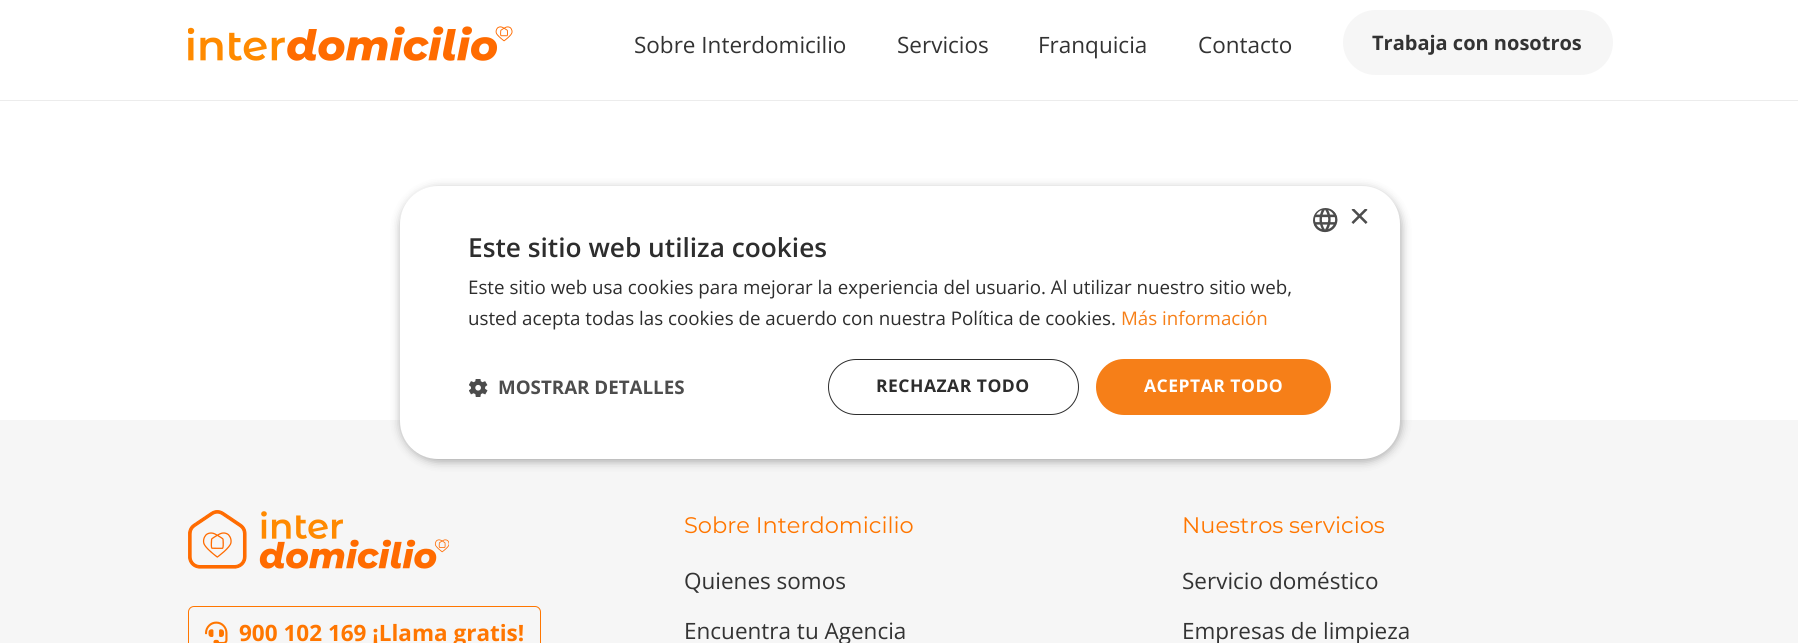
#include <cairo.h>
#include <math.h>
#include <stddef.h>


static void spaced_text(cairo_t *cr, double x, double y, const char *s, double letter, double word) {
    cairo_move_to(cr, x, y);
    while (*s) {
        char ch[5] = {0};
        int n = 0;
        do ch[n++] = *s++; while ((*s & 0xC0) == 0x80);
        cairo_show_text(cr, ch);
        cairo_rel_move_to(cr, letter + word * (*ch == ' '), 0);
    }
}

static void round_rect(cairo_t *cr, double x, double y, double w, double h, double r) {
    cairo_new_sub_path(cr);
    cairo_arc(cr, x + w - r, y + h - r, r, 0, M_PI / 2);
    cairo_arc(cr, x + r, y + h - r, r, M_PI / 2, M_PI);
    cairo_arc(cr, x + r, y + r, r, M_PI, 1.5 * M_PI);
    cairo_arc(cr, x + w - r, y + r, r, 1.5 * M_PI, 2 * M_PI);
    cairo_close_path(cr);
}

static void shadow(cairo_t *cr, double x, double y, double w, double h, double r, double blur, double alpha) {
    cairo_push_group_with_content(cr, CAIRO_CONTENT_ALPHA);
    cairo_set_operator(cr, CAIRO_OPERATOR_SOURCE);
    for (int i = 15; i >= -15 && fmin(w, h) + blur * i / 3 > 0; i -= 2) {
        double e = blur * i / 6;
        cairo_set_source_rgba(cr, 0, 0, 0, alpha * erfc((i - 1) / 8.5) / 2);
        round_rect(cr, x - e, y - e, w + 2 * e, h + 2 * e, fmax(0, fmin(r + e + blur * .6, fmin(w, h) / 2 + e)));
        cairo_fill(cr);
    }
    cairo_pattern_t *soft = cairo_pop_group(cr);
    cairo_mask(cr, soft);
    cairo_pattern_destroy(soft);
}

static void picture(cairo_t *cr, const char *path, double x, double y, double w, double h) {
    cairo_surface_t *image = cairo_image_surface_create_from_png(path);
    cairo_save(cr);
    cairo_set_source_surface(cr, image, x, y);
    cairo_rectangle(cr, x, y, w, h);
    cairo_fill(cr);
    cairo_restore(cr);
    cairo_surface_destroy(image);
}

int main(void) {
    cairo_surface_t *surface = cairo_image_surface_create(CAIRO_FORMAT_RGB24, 1798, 643);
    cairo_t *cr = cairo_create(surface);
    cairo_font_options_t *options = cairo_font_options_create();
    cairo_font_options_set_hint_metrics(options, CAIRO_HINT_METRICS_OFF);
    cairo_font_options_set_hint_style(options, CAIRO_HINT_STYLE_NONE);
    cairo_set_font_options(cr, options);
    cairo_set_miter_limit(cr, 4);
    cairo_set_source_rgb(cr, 1, 1, 1);
    cairo_paint(cr);
    cairo_set_source_rgb(cr, 0.922, 0.922, 0.922);
    cairo_new_path(cr);
    cairo_move_to(cr, 0, 100);
    cairo_line_to(cr, 0, 101);
    cairo_line_to(cr, 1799, 101);
    cairo_line_to(cr, 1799, 1);
    cairo_line_to(cr, 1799, 100);
    cairo_close_path(cr);
    cairo_fill(cr);
    picture(cr, "img1.png", 188, 26, 325, 35);
    cairo_select_font_face(cr, "Open Sans", CAIRO_FONT_SLANT_NORMAL, CAIRO_FONT_WEIGHT_NORMAL);
    cairo_set_font_size(cr, 22.5);
    cairo_set_source_rgb(cr, 0.2, 0.2, 0.2);
    cairo_move_to(cr, 634, 53);
    cairo_show_text(cr, "Sobre Interdomicilio");
    cairo_move_to(cr, 897, 53);
    cairo_show_text(cr, "Servicios");
    cairo_move_to(cr, 1038, 53);
    cairo_show_text(cr, "Franquicia");
    cairo_move_to(cr, 1198, 53);
    cairo_show_text(cr, "Contacto");
    cairo_set_source_rgb(cr, 0.961, 0.961, 0.961);
    round_rect(cr, 1343, 10, 270, 65, 32.5);
    cairo_fill(cr);
    cairo_select_font_face(cr, "Open Sans", CAIRO_FONT_SLANT_NORMAL, CAIRO_FONT_WEIGHT_BOLD);
    cairo_set_font_size(cr, 20);
    cairo_set_source_rgb(cr, 0.2, 0.2, 0.2);
    cairo_move_to(cr, 1372, 50);
    cairo_show_text(cr, "Trabaja con nosotros");
    cairo_set_source_rgb(cr, 0.961, 0.961, 0.961);
    cairo_rectangle(cr, 0, 420, 1798, 223);
    cairo_fill(cr);
    cairo_set_source_rgb(cr, 0, 0, 0);
    shadow(cr, 401, 189, 1000, 272, 38, 5, 0.35);
    cairo_set_source_rgb(cr, 1, 1, 1);
    round_rect(cr, 400, 186, 1000, 273, 38);
    cairo_fill(cr);
    picture(cr, "img2.png", 1313, 208, 25, 25);
    cairo_save(cr);
    cairo_rectangle(cr, 1350, 209, 19, 19);
    cairo_clip(cr);
    cairo_select_font_face(cr, "Liberation Sans", CAIRO_FONT_SLANT_NORMAL, CAIRO_FONT_WEIGHT_NORMAL);
    cairo_set_font_size(cr, 36);
    cairo_set_source_rgb(cr, 0.302, 0.302, 0.302);
    cairo_move_to(cr, 1349, 228);
    cairo_show_text(cr, "×");
    cairo_restore(cr);
    cairo_select_font_face(cr, "Open Sans SemiBold", CAIRO_FONT_SLANT_NORMAL, CAIRO_FONT_WEIGHT_NORMAL);
    cairo_set_font_size(cr, 26.25);
    cairo_set_source_rgb(cr, 0.176, 0.176, 0.176);
    cairo_move_to(cr, 468, 257);
    cairo_show_text(cr, "Este sitio web utiliza cookies");
    cairo_select_font_face(cr, "Open Sans", CAIRO_FONT_SLANT_NORMAL, CAIRO_FONT_WEIGHT_NORMAL);
    cairo_set_font_size(cr, 18.75);
    cairo_move_to(cr, 468, 294);
    cairo_show_text(cr, "Este sitio web usa cookies para mejorar la experiencia del usuario. Al utilizar nuestro sitio web,");
    cairo_move_to(cr, 468, 325);
    cairo_show_text(cr, "usted acepta todas las cookies de acuerdo con nuestra Política de cookies.");
    cairo_set_source_rgb(cr, 0.961, 0.498, 0.094);
    cairo_move_to(cr, 1121, 325);
    cairo_show_text(cr, "Más información");
    picture(cr, "img3.png", 469, 379, 19, 18);
    cairo_select_font_face(cr, "Open Sans", CAIRO_FONT_SLANT_NORMAL, CAIRO_FONT_WEIGHT_BOLD);
    cairo_set_source_rgb(cr, 0.302, 0.302, 0.302);
    cairo_move_to(cr, 498, 394);
    cairo_show_text(cr, "MOSTRAR DETALLES");
    round_rect(cr, 828.5, 359.5, 250, 55, 27.5);
    cairo_set_source_rgb(cr, 0.176, 0.176, 0.176);
    cairo_set_line_width(cr, 1);
    cairo_stroke(cr);
    cairo_set_font_size(cr, 17.5);
    spaced_text(cr, 876, 392, "RECHAZAR TODO", 0.5, 0);
    cairo_set_source_rgb(cr, 0.961, 0.498, 0.094);
    round_rect(cr, 1096, 359, 235, 56, 28);
    cairo_fill(cr);
    cairo_set_source_rgb(cr, 1, 1, 1);
    spaced_text(cr, 1144, 392, "ACEPTAR TODO", 0.5, 0);
    picture(cr, "img4.png", 188, 510, 261, 59);
    picture(cr, "img5.png", 205, 621, 23, 22);
    round_rect(cr, 188.5, 606.5, 352, 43, 5.5);
    cairo_set_source_rgb(cr, 1, 0.463, 0);
    cairo_stroke(cr);
    cairo_set_font_size(cr, 22.5);
    cairo_move_to(cr, 239, 641);
    cairo_show_text(cr, "900 102 169 ¡Llama gratis!");
    cairo_select_font_face(cr, "Montserrat", CAIRO_FONT_SLANT_NORMAL, CAIRO_FONT_WEIGHT_NORMAL);
    cairo_move_to(cr, 684, 533);
    cairo_show_text(cr, "Sobre Interdomicilio");
    cairo_select_font_face(cr, "Open Sans", CAIRO_FONT_SLANT_NORMAL, CAIRO_FONT_WEIGHT_NORMAL);
    cairo_set_source_rgb(cr, 0.2, 0.2, 0.2);
    cairo_move_to(cr, 684, 589);
    cairo_show_text(cr, "Quienes somos");
    cairo_move_to(cr, 684, 639);
    cairo_show_text(cr, "Encuentra tu Agencia");
    cairo_select_font_face(cr, "Montserrat", CAIRO_FONT_SLANT_NORMAL, CAIRO_FONT_WEIGHT_NORMAL);
    cairo_set_source_rgb(cr, 1, 0.463, 0);
    cairo_move_to(cr, 1182, 533);
    cairo_show_text(cr, "Nuestros servicios");
    cairo_select_font_face(cr, "Open Sans", CAIRO_FONT_SLANT_NORMAL, CAIRO_FONT_WEIGHT_NORMAL);
    cairo_set_source_rgb(cr, 0.2, 0.2, 0.2);
    cairo_move_to(cr, 1182, 589);
    cairo_show_text(cr, "Servicio doméstico");
    cairo_move_to(cr, 1182, 639);
    cairo_show_text(cr, "Empresas de limpieza");
    cairo_surface_write_to_png(surface, "page.png");
    cairo_font_options_destroy(options);
    cairo_destroy(cr);
    cairo_surface_destroy(surface);
    return 0;
}
